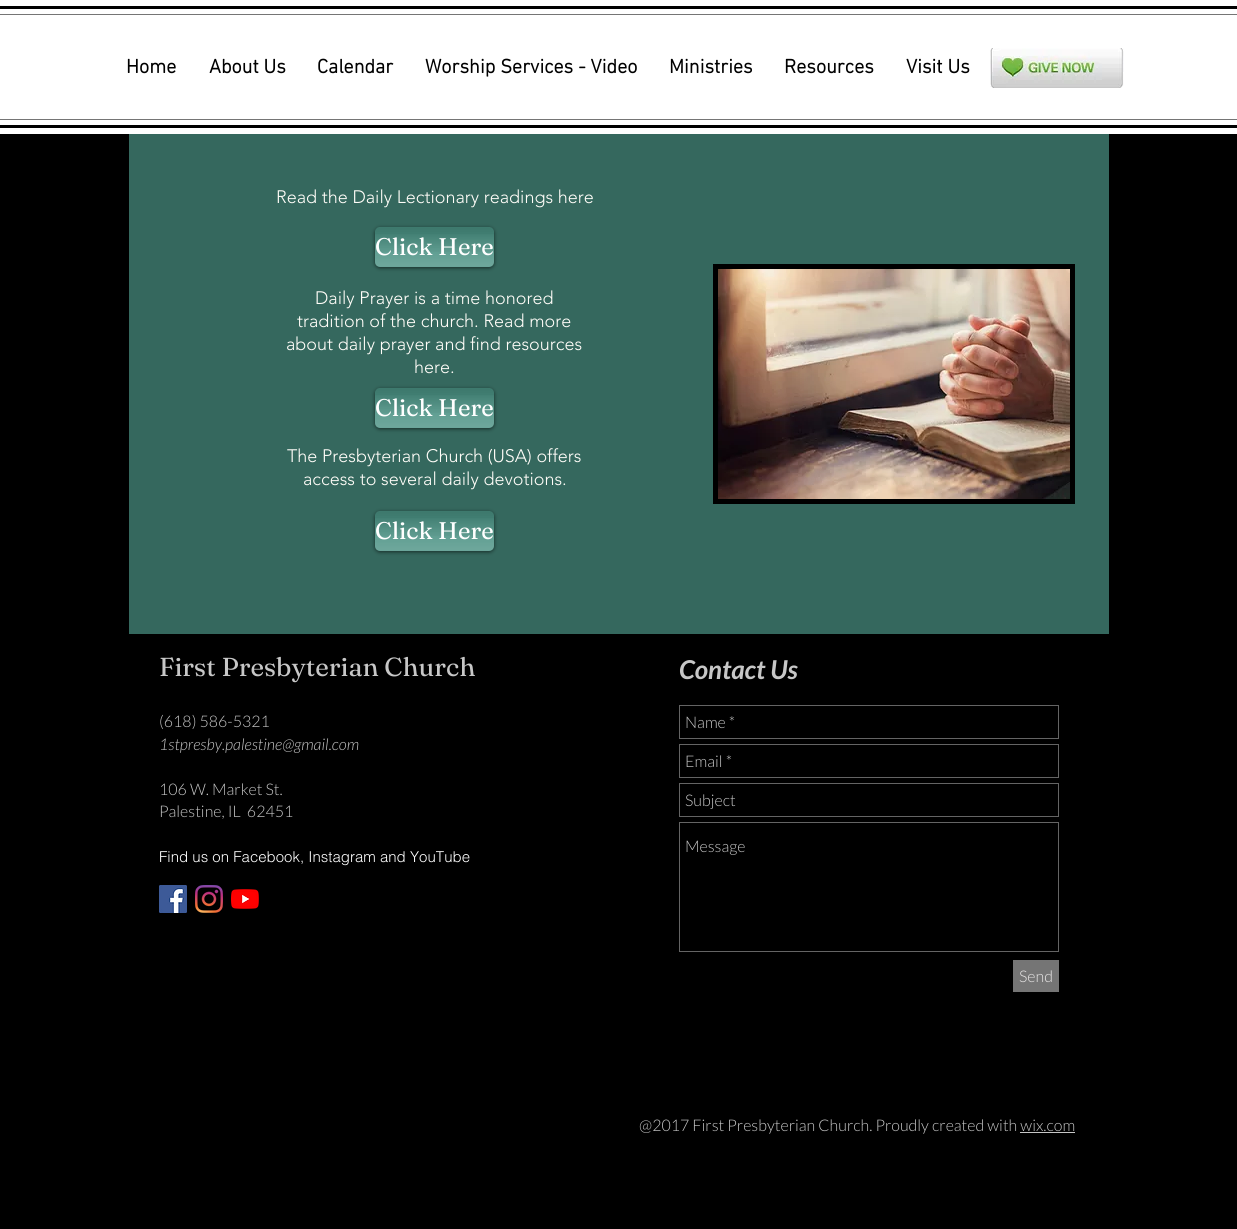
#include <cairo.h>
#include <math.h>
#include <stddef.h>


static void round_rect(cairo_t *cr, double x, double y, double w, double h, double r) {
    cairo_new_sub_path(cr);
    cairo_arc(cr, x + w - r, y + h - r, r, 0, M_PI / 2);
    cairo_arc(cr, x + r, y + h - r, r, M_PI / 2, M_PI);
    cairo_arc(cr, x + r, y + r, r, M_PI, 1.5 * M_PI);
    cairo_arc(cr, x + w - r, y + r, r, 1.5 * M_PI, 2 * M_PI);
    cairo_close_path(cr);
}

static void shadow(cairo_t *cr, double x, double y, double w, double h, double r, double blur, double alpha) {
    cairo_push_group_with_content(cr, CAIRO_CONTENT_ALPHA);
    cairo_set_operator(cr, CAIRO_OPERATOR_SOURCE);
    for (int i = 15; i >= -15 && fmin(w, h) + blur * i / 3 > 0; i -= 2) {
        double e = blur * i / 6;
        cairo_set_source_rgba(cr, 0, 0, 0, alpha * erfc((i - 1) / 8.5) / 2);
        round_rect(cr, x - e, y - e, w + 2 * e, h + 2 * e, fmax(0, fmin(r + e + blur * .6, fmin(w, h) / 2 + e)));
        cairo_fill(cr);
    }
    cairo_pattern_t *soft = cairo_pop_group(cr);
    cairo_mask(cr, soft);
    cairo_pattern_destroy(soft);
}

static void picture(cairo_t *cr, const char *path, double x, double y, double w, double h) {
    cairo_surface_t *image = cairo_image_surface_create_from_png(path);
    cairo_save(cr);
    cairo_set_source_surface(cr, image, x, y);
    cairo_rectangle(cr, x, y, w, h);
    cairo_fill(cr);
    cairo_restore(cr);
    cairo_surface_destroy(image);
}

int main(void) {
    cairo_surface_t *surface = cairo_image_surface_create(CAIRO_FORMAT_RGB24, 1237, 1229);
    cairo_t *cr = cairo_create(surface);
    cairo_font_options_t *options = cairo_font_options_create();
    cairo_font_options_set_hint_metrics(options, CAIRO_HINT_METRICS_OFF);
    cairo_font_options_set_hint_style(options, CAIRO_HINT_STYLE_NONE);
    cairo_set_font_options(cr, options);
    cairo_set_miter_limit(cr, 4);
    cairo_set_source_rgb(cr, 0, 0, 0);
    cairo_paint(cr);
    cairo_set_source_rgb(cr, 1, 1, 1);
    cairo_rectangle(cr, 0, 0, 1237, 134);
    cairo_fill(cr);
    cairo_set_source_rgb(cr, 0, 0, 0);
    cairo_rectangle(cr, 0, 6, 1237, 3);
    cairo_fill(cr);
    cairo_rectangle(cr, 0, 125, 1237, 3);
    cairo_fill(cr);
    cairo_set_source_rgb(cr, 0.459, 0.459, 0.459);
    cairo_rectangle(cr, 0, 14, 1237, 1);
    cairo_fill(cr);
    cairo_rectangle(cr, 0, 119, 1237, 1);
    cairo_fill(cr);
    cairo_select_font_face(cr, "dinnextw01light", CAIRO_FONT_SLANT_NORMAL, CAIRO_FONT_WEIGHT_BOLD);
    cairo_set_font_size(cr, 20);
    cairo_set_source_rgb(cr, 0, 0, 0);
    cairo_move_to(cr, 126, 73);
    cairo_show_text(cr, "Home");
    cairo_move_to(cr, 209, 73);
    cairo_show_text(cr, "About Us");
    cairo_move_to(cr, 317, 73);
    cairo_show_text(cr, "Calendar");
    cairo_move_to(cr, 425, 73);
    cairo_show_text(cr, "Worship Services - Video");
    cairo_move_to(cr, 669, 73);
    cairo_show_text(cr, "Ministries");
    cairo_move_to(cr, 784, 73);
    cairo_show_text(cr, "Resources");
    cairo_move_to(cr, 906, 73);
    cairo_show_text(cr, "Visit Us");
    picture(cr, "img1.png", 990, 48, 134, 40);
    cairo_set_source_rgb(cr, 0.208, 0.408, 0.369);
    cairo_rectangle(cr, 129, 134, 980, 500);
    cairo_fill(cr);
    cairo_select_font_face(cr, "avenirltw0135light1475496 Light", CAIRO_FONT_SLANT_NORMAL, CAIRO_FONT_WEIGHT_NORMAL);
    cairo_set_font_size(cr, 18);
    cairo_set_source_rgb(cr, 1, 0.992, 0.969);
    cairo_move_to(cr, 276, 203);
    cairo_show_text(cr, "Read the Daily Lectionary readings here");
    cairo_set_source_rgb(cr, 0, 0, 0);
    shadow(cr, 375, 228, 119, 40, 5, 2, 0.6);
    cairo_set_source_rgb(cr, 0.29, 0.569, 0.514);
    round_rect(cr, 375, 227, 119, 40, 5);
    cairo_fill(cr);
    picture(cr, "img2.png", 375, 227, 119, 25);
    picture(cr, "img3.png", 375, 234, 119, 33);
    cairo_select_font_face(cr, "Fraunces", CAIRO_FONT_SLANT_NORMAL, CAIRO_FONT_WEIGHT_NORMAL);
    cairo_set_font_size(cr, 24);
    cairo_set_source_rgb(cr, 1, 1, 1);
    cairo_move_to(cr, 375, 255);
    cairo_show_text(cr, "Click Here");
    cairo_select_font_face(cr, "avenirltw0135light1475496 Light", CAIRO_FONT_SLANT_NORMAL, CAIRO_FONT_WEIGHT_NORMAL);
    cairo_set_font_size(cr, 18);
    cairo_set_source_rgb(cr, 1, 0.992, 0.969);
    cairo_move_to(cr, 315, 304);
    cairo_show_text(cr, "Daily Prayer is a time honored");
    cairo_move_to(cr, 297, 327);
    cairo_show_text(cr, "tradition of the church. Read more");
    cairo_move_to(cr, 286, 350);
    cairo_show_text(cr, "about daily prayer and find resources");
    cairo_move_to(cr, 414, 373);
    cairo_show_text(cr, "here.");
    cairo_set_source_rgb(cr, 0, 0, 0);
    cairo_rectangle(cr, 713, 264, 362, 240);
    cairo_fill(cr);
    picture(cr, "img4.png", 718, 269, 352, 230);
    cairo_set_source_rgb(cr, 0, 0, 0);
    shadow(cr, 375, 389, 119, 40, 5, 2, 0.6);
    cairo_set_source_rgb(cr, 0.29, 0.569, 0.514);
    round_rect(cr, 375, 388, 119, 40, 5);
    cairo_fill(cr);
    picture(cr, "img2.png", 375, 388, 119, 25);
    picture(cr, "img5.png", 375, 395, 119, 33);
    cairo_select_font_face(cr, "Fraunces", CAIRO_FONT_SLANT_NORMAL, CAIRO_FONT_WEIGHT_NORMAL);
    cairo_set_font_size(cr, 24);
    cairo_set_source_rgb(cr, 1, 1, 1);
    cairo_move_to(cr, 375, 416);
    cairo_show_text(cr, "Click Here");
    cairo_select_font_face(cr, "avenirltw0135light1475496 Light", CAIRO_FONT_SLANT_NORMAL, CAIRO_FONT_WEIGHT_NORMAL);
    cairo_set_font_size(cr, 18);
    cairo_set_source_rgb(cr, 1, 0.992, 0.969);
    cairo_move_to(cr, 287, 462);
    cairo_show_text(cr, "The Presbyterian Church (USA) offers");
    cairo_move_to(cr, 303, 485);
    cairo_show_text(cr, "access to several daily devotions.");
    cairo_set_source_rgb(cr, 0, 0, 0);
    shadow(cr, 375, 512, 119, 40, 5, 2, 0.6);
    cairo_set_source_rgb(cr, 0.29, 0.569, 0.514);
    round_rect(cr, 375, 511, 119, 40, 5);
    cairo_fill(cr);
    picture(cr, "img2.png", 375, 511, 119, 25);
    picture(cr, "img5.png", 375, 518, 119, 33);
    cairo_select_font_face(cr, "Fraunces", CAIRO_FONT_SLANT_NORMAL, CAIRO_FONT_WEIGHT_NORMAL);
    cairo_set_font_size(cr, 24);
    cairo_set_source_rgb(cr, 1, 1, 1);
    cairo_move_to(cr, 375, 539);
    cairo_show_text(cr, "Click Here");
    cairo_set_font_size(cr, 26);
    cairo_set_source_rgb(cr, 0.78, 0.78, 0.78);
    cairo_move_to(cr, 159, 676);
    cairo_show_text(cr, "First Presbyterian Church");
    cairo_select_font_face(cr, "Lato", CAIRO_FONT_SLANT_ITALIC, CAIRO_FONT_WEIGHT_BOLD);
    cairo_move_to(cr, 679, 679);
    cairo_show_text(cr, "Contact Us");
    cairo_select_font_face(cr, "Lato Light", CAIRO_FONT_SLANT_NORMAL, CAIRO_FONT_WEIGHT_NORMAL);
    cairo_set_font_size(cr, 16);
    cairo_move_to(cr, 159, 727);
    cairo_show_text(cr, "(618) 586-5321");
    cairo_select_font_face(cr, "Lato Light", CAIRO_FONT_SLANT_ITALIC, CAIRO_FONT_WEIGHT_NORMAL);
    cairo_move_to(cr, 159, 750);
    cairo_show_text(cr, "1stpresby.palestine@gmail.com");
    cairo_select_font_face(cr, "Lato Light", CAIRO_FONT_SLANT_NORMAL, CAIRO_FONT_WEIGHT_NORMAL);
    cairo_move_to(cr, 159, 795);
    cairo_show_text(cr, "106 W. Market St.");
    cairo_move_to(cr, 159, 817);
    cairo_show_text(cr, "Palestine, IL  62451");
    cairo_rectangle(cr, 679.5, 705.5, 379, 33);
    cairo_set_source_rgb(cr, 0.392, 0.392, 0.392);
    cairo_set_line_width(cr, 1);
    cairo_stroke(cr);
    cairo_set_source_rgb(cr, 0.78, 0.78, 0.78);
    cairo_move_to(cr, 685, 728);
    cairo_show_text(cr, "Name *");
    cairo_rectangle(cr, 679.5, 744.5, 379, 33);
    cairo_set_source_rgb(cr, 0.392, 0.392, 0.392);
    cairo_stroke(cr);
    cairo_set_source_rgb(cr, 0.78, 0.78, 0.78);
    cairo_move_to(cr, 685, 767);
    cairo_show_text(cr, "Email *");
    cairo_rectangle(cr, 679.5, 783.5, 379, 33);
    cairo_set_source_rgb(cr, 0.392, 0.392, 0.392);
    cairo_stroke(cr);
    cairo_set_source_rgb(cr, 0.78, 0.78, 0.78);
    cairo_move_to(cr, 685, 806);
    cairo_show_text(cr, "Subject");
    cairo_rectangle(cr, 679.5, 822.5, 379, 129);
    cairo_set_source_rgb(cr, 0.392, 0.392, 0.392);
    cairo_stroke(cr);
    cairo_set_source_rgb(cr, 0.78, 0.78, 0.78);
    cairo_move_to(cr, 685, 852);
    cairo_show_text(cr, "Message");
    cairo_set_source_rgb(cr, 0.459, 0.459, 0.459);
    cairo_rectangle(cr, 1013, 960, 46, 32);
    cairo_fill(cr);
    cairo_set_source_rgb(cr, 0.91, 0.902, 0.902);
    cairo_move_to(cr, 1019, 982);
    cairo_show_text(cr, "Send");
    cairo_select_font_face(cr, "helvetica Light", CAIRO_FONT_SLANT_NORMAL, CAIRO_FONT_WEIGHT_NORMAL);
    cairo_set_font_size(cr, 15);
    cairo_set_source_rgb(cr, 1, 1, 1);
    cairo_move_to(cr, 159, 862);
    cairo_show_text(cr, "Find us on Facebook, Instagram and YouTube");
    picture(cr, "img6.png", 159, 885, 28, 28);
    picture(cr, "img7.png", 195, 885, 28, 28);
    picture(cr, "img8.png", 231, 889, 28, 20);
    cairo_select_font_face(cr, "Lato Light", CAIRO_FONT_SLANT_NORMAL, CAIRO_FONT_WEIGHT_NORMAL);
    cairo_set_font_size(cr, 16);
    cairo_set_source_rgb(cr, 0.78, 0.78, 0.78);
    cairo_move_to(cr, 639, 1131);
    cairo_show_text(cr, "@2017 First Presbyterian Church. Proudly created with wix.com");
    cairo_rectangle(cr, 1020, 1132, 55, 1);
    cairo_fill(cr);
    cairo_surface_write_to_png(surface, "page.png");
    cairo_font_options_destroy(options);
    cairo_destroy(cr);
    cairo_surface_destroy(surface);
    return 0;
}
